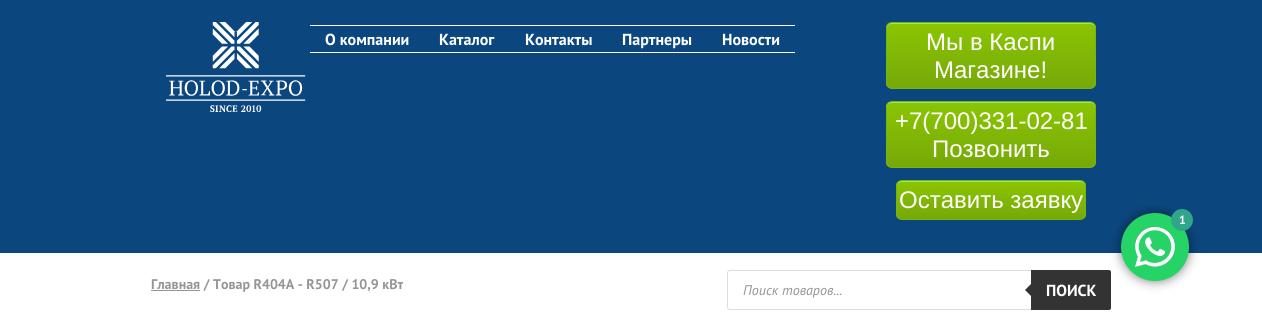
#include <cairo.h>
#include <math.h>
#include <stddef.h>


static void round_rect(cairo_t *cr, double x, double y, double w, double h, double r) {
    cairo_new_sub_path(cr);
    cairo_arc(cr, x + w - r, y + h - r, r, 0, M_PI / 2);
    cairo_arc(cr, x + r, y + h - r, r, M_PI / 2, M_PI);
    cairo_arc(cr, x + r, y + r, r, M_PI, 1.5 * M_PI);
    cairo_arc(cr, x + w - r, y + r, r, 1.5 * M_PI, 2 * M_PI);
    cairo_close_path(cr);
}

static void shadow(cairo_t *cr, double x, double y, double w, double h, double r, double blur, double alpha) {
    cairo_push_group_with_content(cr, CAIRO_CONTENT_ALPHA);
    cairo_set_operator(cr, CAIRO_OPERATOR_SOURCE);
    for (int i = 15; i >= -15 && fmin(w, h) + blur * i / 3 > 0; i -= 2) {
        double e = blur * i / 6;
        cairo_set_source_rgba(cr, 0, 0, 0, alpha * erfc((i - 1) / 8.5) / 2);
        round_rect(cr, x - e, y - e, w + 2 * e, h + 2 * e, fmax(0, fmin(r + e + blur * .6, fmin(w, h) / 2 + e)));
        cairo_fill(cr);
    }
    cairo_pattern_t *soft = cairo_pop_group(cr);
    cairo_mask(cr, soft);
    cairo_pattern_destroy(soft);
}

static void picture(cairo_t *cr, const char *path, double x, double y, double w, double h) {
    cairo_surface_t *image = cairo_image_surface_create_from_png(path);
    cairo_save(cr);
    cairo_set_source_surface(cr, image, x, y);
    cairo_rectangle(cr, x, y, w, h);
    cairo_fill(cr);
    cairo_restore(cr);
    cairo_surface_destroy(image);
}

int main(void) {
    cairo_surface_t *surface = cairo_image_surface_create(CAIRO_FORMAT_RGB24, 1262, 316);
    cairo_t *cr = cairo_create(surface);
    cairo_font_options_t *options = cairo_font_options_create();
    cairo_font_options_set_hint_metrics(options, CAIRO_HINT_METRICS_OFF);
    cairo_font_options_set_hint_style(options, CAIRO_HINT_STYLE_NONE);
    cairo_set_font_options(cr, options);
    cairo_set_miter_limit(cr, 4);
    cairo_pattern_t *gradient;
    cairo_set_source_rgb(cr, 1, 1, 1);
    cairo_paint(cr);
    cairo_set_source_rgb(cr, 0.043, 0.278, 0.494);
    cairo_rectangle(cr, 0, 0, 1262, 253);
    cairo_fill(cr);
    picture(cr, "img1.png", 166, 22, 140, 90);
    cairo_set_source_rgb(cr, 1, 1, 1);
    cairo_rectangle(cr, 310, 25, 485, 1);
    cairo_fill(cr);
    cairo_rectangle(cr, 310, 52, 485, 1);
    cairo_fill(cr);
    cairo_select_font_face(cr, "PT Sans", CAIRO_FONT_SLANT_NORMAL, CAIRO_FONT_WEIGHT_BOLD);
    cairo_set_font_size(cr, 16);
    cairo_move_to(cr, 325, 45);
    cairo_show_text(cr, "О компании");
    cairo_move_to(cr, 439, 45);
    cairo_show_text(cr, "Каталог");
    cairo_move_to(cr, 525, 45);
    cairo_show_text(cr, "Контакты");
    cairo_move_to(cr, 622, 45);
    cairo_show_text(cr, "Партнеры");
    cairo_move_to(cr, 722, 45);
    cairo_show_text(cr, "Новости");
    cairo_save(cr);
    round_rect(cr, 886, 22, 210, 67, 6);
    cairo_clip(cr);
    gradient = cairo_pattern_create_linear(991, 23, 991, 88);
    cairo_pattern_add_color_stop_rgba(gradient, 0.05, 0.537, 0.769, 0.012, 1);
    cairo_pattern_add_color_stop_rgba(gradient, 1, 0.467, 0.659, 0.035, 1);
    cairo_set_source(cr, gradient);
    cairo_pattern_destroy(gradient);
    cairo_rectangle(cr, 886, 23, 210, 65);
    cairo_fill(cr);
    cairo_restore(cr);
    cairo_set_source_rgb(cr, 0.643, 0.886, 0.443);
    cairo_new_path(cr);
    cairo_move_to(cr, 892, 24);
    cairo_line_to(cr, 1090, 24);
    cairo_curve_to(cr, 1093, 24, 1095, 26, 1095, 29);
    cairo_line_to(cr, 1095, 28);
    cairo_curve_to(cr, 1095, 25, 1093, 23, 1090, 23);
    cairo_line_to(cr, 892, 23);
    cairo_curve_to(cr, 889, 23, 887, 25, 887, 28);
    cairo_line_to(cr, 887, 29);
    cairo_curve_to(cr, 887, 26, 889, 24, 892, 24);
    cairo_close_path(cr);
    cairo_fill(cr);
    round_rect(cr, 886.5, 22.5, 209, 66, 5.5);
    cairo_set_source_rgb(cr, 0.455, 0.722, 0.027);
    cairo_set_line_width(cr, 1);
    cairo_stroke(cr);
    cairo_select_font_face(cr, "Liberation Sans", CAIRO_FONT_SLANT_NORMAL, CAIRO_FONT_WEIGHT_NORMAL);
    cairo_set_font_size(cr, 24);
    cairo_set_source_rgb(cr, 1, 1, 1);
    cairo_move_to(cr, 926, 50);
    cairo_show_text(cr, "Мы в Каспи");
    cairo_move_to(cr, 934, 78);
    cairo_show_text(cr, "Магазине!");
    cairo_save(cr);
    round_rect(cr, 886, 101, 210, 67, 6);
    cairo_clip(cr);
    gradient = cairo_pattern_create_linear(991, 102, 991, 167);
    cairo_pattern_add_color_stop_rgba(gradient, 0.05, 0.537, 0.769, 0.012, 1);
    cairo_pattern_add_color_stop_rgba(gradient, 1, 0.467, 0.659, 0.035, 1);
    cairo_set_source(cr, gradient);
    cairo_pattern_destroy(gradient);
    cairo_rectangle(cr, 886, 102, 210, 65);
    cairo_fill(cr);
    cairo_restore(cr);
    cairo_set_source_rgb(cr, 0.643, 0.886, 0.443);
    cairo_new_path(cr);
    cairo_move_to(cr, 892, 103);
    cairo_line_to(cr, 1090, 103);
    cairo_curve_to(cr, 1093, 103, 1095, 105, 1095, 108);
    cairo_line_to(cr, 1095, 107);
    cairo_curve_to(cr, 1095, 104, 1093, 102, 1090, 102);
    cairo_line_to(cr, 892, 102);
    cairo_curve_to(cr, 889, 102, 887, 104, 887, 107);
    cairo_line_to(cr, 887, 108);
    cairo_curve_to(cr, 887, 105, 889, 103, 892, 103);
    cairo_close_path(cr);
    cairo_fill(cr);
    round_rect(cr, 886.5, 101.5, 209, 66, 5.5);
    cairo_set_source_rgb(cr, 0.455, 0.722, 0.027);
    cairo_stroke(cr);
    cairo_set_source_rgb(cr, 1, 1, 1);
    cairo_move_to(cr, 895, 129);
    cairo_show_text(cr, "+7(700)331-02-81");
    cairo_move_to(cr, 932, 157);
    cairo_show_text(cr, "Позвонить");
    cairo_save(cr);
    round_rect(cr, 896, 180, 190, 40, 6);
    cairo_clip(cr);
    gradient = cairo_pattern_create_linear(991, 181, 991, 219);
    cairo_pattern_add_color_stop_rgba(gradient, 0.05, 0.537, 0.769, 0.012, 1);
    cairo_pattern_add_color_stop_rgba(gradient, 1, 0.467, 0.659, 0.035, 1);
    cairo_set_source(cr, gradient);
    cairo_pattern_destroy(gradient);
    cairo_rectangle(cr, 896, 181, 190, 38);
    cairo_fill(cr);
    cairo_restore(cr);
    cairo_set_source_rgb(cr, 0.643, 0.886, 0.443);
    cairo_new_path(cr);
    cairo_move_to(cr, 902, 182);
    cairo_line_to(cr, 1080, 182);
    cairo_curve_to(cr, 1083, 182, 1085, 184, 1085, 187);
    cairo_curve_to(cr, 1085, 184, 1084, 182, 1081, 181);
    cairo_line_to(cr, 901, 181);
    cairo_curve_to(cr, 898, 182, 897, 184, 897, 187);
    cairo_curve_to(cr, 897, 184, 899, 182, 902, 182);
    cairo_close_path(cr);
    cairo_fill(cr);
    round_rect(cr, 896.5, 180.5, 189, 39, 5.5);
    cairo_set_source_rgb(cr, 0.455, 0.722, 0.027);
    cairo_stroke(cr);
    cairo_set_source_rgb(cr, 1, 1, 1);
    cairo_move_to(cr, 899, 208);
    cairo_show_text(cr, "Оставить заявку");
    round_rect(cr, 727.5, 270.5, 383, 39, 2.5);
    cairo_set_source_rgb(cr, 0.867, 0.867, 0.867);
    cairo_stroke(cr);
    cairo_set_source_rgb(cr, 0.2, 0.2, 0.2);
    cairo_new_path(cr);
    cairo_move_to(cr, 1031, 270);
    cairo_line_to(cr, 1109, 270);
    cairo_curve_to(cr, 1110, 270, 1111, 271, 1111, 272);
    cairo_line_to(cr, 1111, 308);
    cairo_curve_to(cr, 1111, 309, 1110, 310, 1109, 310);
    cairo_line_to(cr, 1031, 310);
    cairo_close_path(cr);
    cairo_fill(cr);
    cairo_set_source_rgb(cr, 0, 0, 0);
    shadow(cr, 1121, 213, 68, 68, 34, 5.5, 0.5);
    cairo_set_source_rgb(cr, 0.145, 0.827, 0.4);
    cairo_arc(cr, 1155, 247, 34, 0, 2 * M_PI);
    cairo_fill(cr);
    picture(cr, "img2.png", 1135, 227, 40, 40);
    cairo_set_source_rgb(cr, 0.192, 0.647, 0.541);
    cairo_arc(cr, 1182, 220, 11, 0, 2 * M_PI);
    cairo_fill(cr);
    cairo_select_font_face(cr, "PT Sans", CAIRO_FONT_SLANT_NORMAL, CAIRO_FONT_WEIGHT_BOLD);
    cairo_set_font_size(cr, 12);
    cairo_set_source_rgb(cr, 1, 1, 1);
    cairo_move_to(cr, 1179, 224);
    cairo_show_text(cr, "1");
    cairo_set_source_rgb(cr, 0.584, 0.584, 0.584);
    cairo_rectangle(cr, 151, 290, 49, 1);
    cairo_fill(cr);
    cairo_set_font_size(cr, 14);
    cairo_move_to(cr, 151, 289);
    cairo_show_text(cr, "Главная / Товар R404A - R507 / 10,9 кВт");
    cairo_select_font_face(cr, "PT Sans", CAIRO_FONT_SLANT_ITALIC, CAIRO_FONT_WEIGHT_NORMAL);
    cairo_move_to(cr, 743, 295);
    cairo_show_text(cr, "Поиск товаров...");
    cairo_set_source_rgb(cr, 0.2, 0.2, 0.2);
    cairo_new_path(cr);
    cairo_move_to(cr, 1033, 282);
    cairo_line_to(cr, 1033, 298);
    cairo_line_to(cr, 1025, 290);
    cairo_close_path(cr);
    cairo_fill(cr);
    cairo_select_font_face(cr, "PT Sans", CAIRO_FONT_SLANT_NORMAL, CAIRO_FONT_WEIGHT_BOLD);
    cairo_set_font_size(cr, 16);
    cairo_set_source_rgb(cr, 1, 1, 1);
    cairo_move_to(cr, 1046, 296);
    cairo_show_text(cr, "ПОИСК");
    cairo_surface_write_to_png(surface, "page.png");
    cairo_font_options_destroy(options);
    cairo_destroy(cr);
    cairo_surface_destroy(surface);
    return 0;
}
